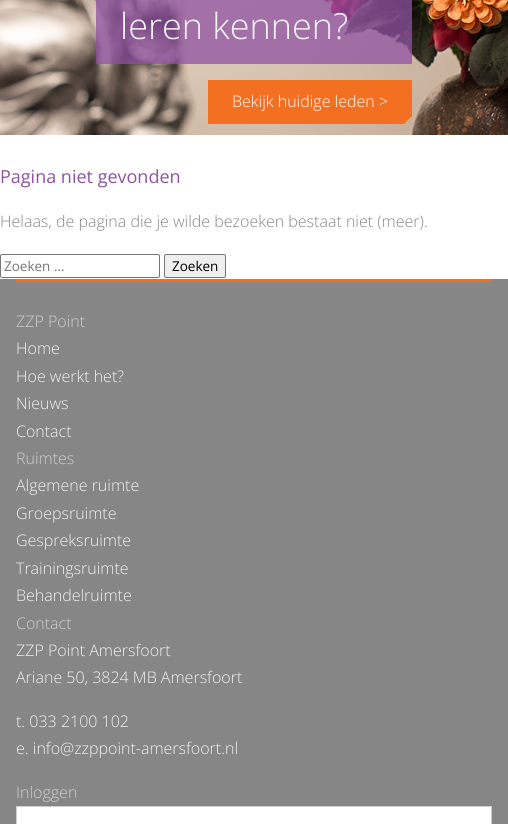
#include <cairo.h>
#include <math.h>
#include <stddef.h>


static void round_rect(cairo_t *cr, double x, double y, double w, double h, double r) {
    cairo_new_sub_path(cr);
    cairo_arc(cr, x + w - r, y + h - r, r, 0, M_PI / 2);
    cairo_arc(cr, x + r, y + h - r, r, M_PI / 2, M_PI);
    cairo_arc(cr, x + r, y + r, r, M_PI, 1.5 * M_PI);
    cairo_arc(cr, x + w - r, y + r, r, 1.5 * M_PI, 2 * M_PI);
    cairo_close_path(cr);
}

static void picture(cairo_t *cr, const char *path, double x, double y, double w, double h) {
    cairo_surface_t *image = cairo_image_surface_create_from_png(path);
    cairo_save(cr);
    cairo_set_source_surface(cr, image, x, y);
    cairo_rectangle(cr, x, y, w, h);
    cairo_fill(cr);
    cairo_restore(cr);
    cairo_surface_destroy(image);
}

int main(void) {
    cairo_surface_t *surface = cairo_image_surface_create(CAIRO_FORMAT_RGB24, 508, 824);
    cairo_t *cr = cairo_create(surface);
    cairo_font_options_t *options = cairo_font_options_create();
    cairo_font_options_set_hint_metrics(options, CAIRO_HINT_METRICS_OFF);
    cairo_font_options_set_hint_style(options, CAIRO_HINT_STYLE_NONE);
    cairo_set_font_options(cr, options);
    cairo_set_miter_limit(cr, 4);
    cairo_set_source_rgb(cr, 1, 1, 1);
    cairo_paint(cr);
    picture(cr, "img1.png", 0, 0, 508, 135);
    cairo_set_source_rgba(cr, 0.561, 0.322, 0.631, 0.75);
    cairo_rectangle(cr, 96, 0, 316, 64);
    cairo_fill(cr);
    cairo_select_font_face(cr, "Open Sans Light", CAIRO_FONT_SLANT_NORMAL, CAIRO_FONT_WEIGHT_NORMAL);
    cairo_set_font_size(cr, 36);
    cairo_set_source_rgb(cr, 0.949, 0.949, 0.949);
    cairo_move_to(cr, 120, 39);
    cairo_show_text(cr, "leren kennen?");
    cairo_set_source_rgb(cr, 0.953, 0.435, 0.129);
    cairo_rectangle(cr, 208, 80, 196, 44);
    cairo_fill(cr);
    cairo_set_font_size(cr, 16);
    cairo_set_source_rgb(cr, 1, 1, 1);
    cairo_move_to(cr, 232, 107);
    cairo_show_text(cr, "Bekijk huidige leden >");
    cairo_set_source_rgb(cr, 0.953, 0.435, 0.129);
    cairo_rectangle(cr, 404, 80, 8, 1);
    cairo_fill(cr);
    cairo_new_path(cr);
    cairo_move_to(cr, 404, 124);
    cairo_line_to(cr, 404, 80);
    cairo_line_to(cr, 412, 81);
    cairo_line_to(cr, 412, 116);
    cairo_close_path(cr);
    cairo_fill(cr);
    cairo_select_font_face(cr, "Open Sans", CAIRO_FONT_SLANT_NORMAL, CAIRO_FONT_WEIGHT_NORMAL);
    cairo_set_font_size(cr, 18);
    cairo_set_source_rgb(cr, 0.561, 0.322, 0.631);
    cairo_move_to(cr, 0, 183);
    cairo_show_text(cr, "Pagina niet gevonden");
    cairo_select_font_face(cr, "Open Sans Light", CAIRO_FONT_SLANT_NORMAL, CAIRO_FONT_WEIGHT_NORMAL);
    cairo_set_font_size(cr, 16);
    cairo_set_source_rgb(cr, 0.525, 0.525, 0.525);
    cairo_move_to(cr, 0, 227);
    cairo_show_text(cr, "Helaas, de pagina die je wilde bezoeken bestaat niet (meer).");
    round_rect(cr, 0.5, 254.5, 159, 23, 1.5);
    cairo_set_source_rgb(cr, 0.463, 0.463, 0.463);
    cairo_set_line_width(cr, 1);
    cairo_stroke(cr);
    cairo_select_font_face(cr, "Open Sans", CAIRO_FONT_SLANT_NORMAL, CAIRO_FONT_WEIGHT_NORMAL);
    cairo_set_font_size(cr, 13.5);
    cairo_set_source_rgb(cr, 0.459, 0.459, 0.459);
    cairo_move_to(cr, 4, 271);
    cairo_show_text(cr, "Zoeken …");
    cairo_set_source_rgb(cr, 0.937, 0.937, 0.937);
    round_rect(cr, 164.5, 254.5, 61, 23, 1.5);
    cairo_fill_preserve(cr);
    cairo_set_source_rgb(cr, 0.463, 0.463, 0.463);
    cairo_stroke(cr);
    cairo_set_source_rgb(cr, 0, 0, 0);
    cairo_move_to(cr, 172, 271);
    cairo_show_text(cr, "Zoeken");
    cairo_set_source_rgb(cr, 0.525, 0.525, 0.525);
    cairo_rectangle(cr, 0, 279, 508, 545);
    cairo_fill(cr);
    cairo_set_source_rgb(cr, 0.953, 0.435, 0.129);
    cairo_rectangle(cr, 16, 279, 476, 3);
    cairo_fill(cr);
    cairo_select_font_face(cr, "Open Sans Light", CAIRO_FONT_SLANT_NORMAL, CAIRO_FONT_WEIGHT_NORMAL);
    cairo_set_font_size(cr, 16);
    cairo_set_source_rgb(cr, 0.812, 0.812, 0.812);
    cairo_move_to(cr, 16, 327);
    cairo_show_text(cr, "ZZP Point");
    cairo_set_source_rgb(cr, 0.949, 0.949, 0.949);
    cairo_move_to(cr, 16, 354);
    cairo_show_text(cr, "Home");
    cairo_move_to(cr, 16, 382);
    cairo_show_text(cr, "Hoe werkt het?");
    cairo_move_to(cr, 16, 409);
    cairo_show_text(cr, "Nieuws");
    cairo_move_to(cr, 16, 437);
    cairo_show_text(cr, "Contact");
    cairo_set_source_rgb(cr, 0.812, 0.812, 0.812);
    cairo_move_to(cr, 16, 464);
    cairo_show_text(cr, "Ruimtes");
    cairo_set_source_rgb(cr, 0.949, 0.949, 0.949);
    cairo_move_to(cr, 16, 491);
    cairo_show_text(cr, "Algemene ruimte");
    cairo_move_to(cr, 16, 519);
    cairo_show_text(cr, "Groepsruimte");
    cairo_move_to(cr, 16, 546);
    cairo_show_text(cr, "Gespreksruimte");
    cairo_move_to(cr, 16, 574);
    cairo_show_text(cr, "Trainingsruimte");
    cairo_move_to(cr, 16, 601);
    cairo_show_text(cr, "Behandelruimte");
    cairo_set_source_rgb(cr, 0.812, 0.812, 0.812);
    cairo_move_to(cr, 16, 629);
    cairo_show_text(cr, "Contact");
    cairo_set_source_rgb(cr, 0.949, 0.949, 0.949);
    cairo_move_to(cr, 16, 656);
    cairo_show_text(cr, "ZZP Point Amersfoort");
    cairo_move_to(cr, 16, 683);
    cairo_show_text(cr, "Ariane 50, 3824 MB Amersfoort");
    cairo_move_to(cr, 16, 727);
    cairo_show_text(cr, "t. 033 2100 102");
    cairo_move_to(cr, 16, 754);
    cairo_show_text(cr, "e. info@zzppoint-amersfoort.nl");
    cairo_set_source_rgb(cr, 0.812, 0.812, 0.812);
    cairo_move_to(cr, 16, 798);
    cairo_show_text(cr, "Inloggen");
    cairo_set_source_rgb(cr, 1, 1, 1);
    cairo_rectangle(cr, 16.5, 806.5, 475, 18);
    cairo_fill_preserve(cr);
    cairo_set_source_rgb(cr, 0.812, 0.812, 0.812);
    cairo_stroke(cr);
    cairo_surface_write_to_png(surface, "page.png");
    cairo_font_options_destroy(options);
    cairo_destroy(cr);
    cairo_surface_destroy(surface);
    return 0;
}
